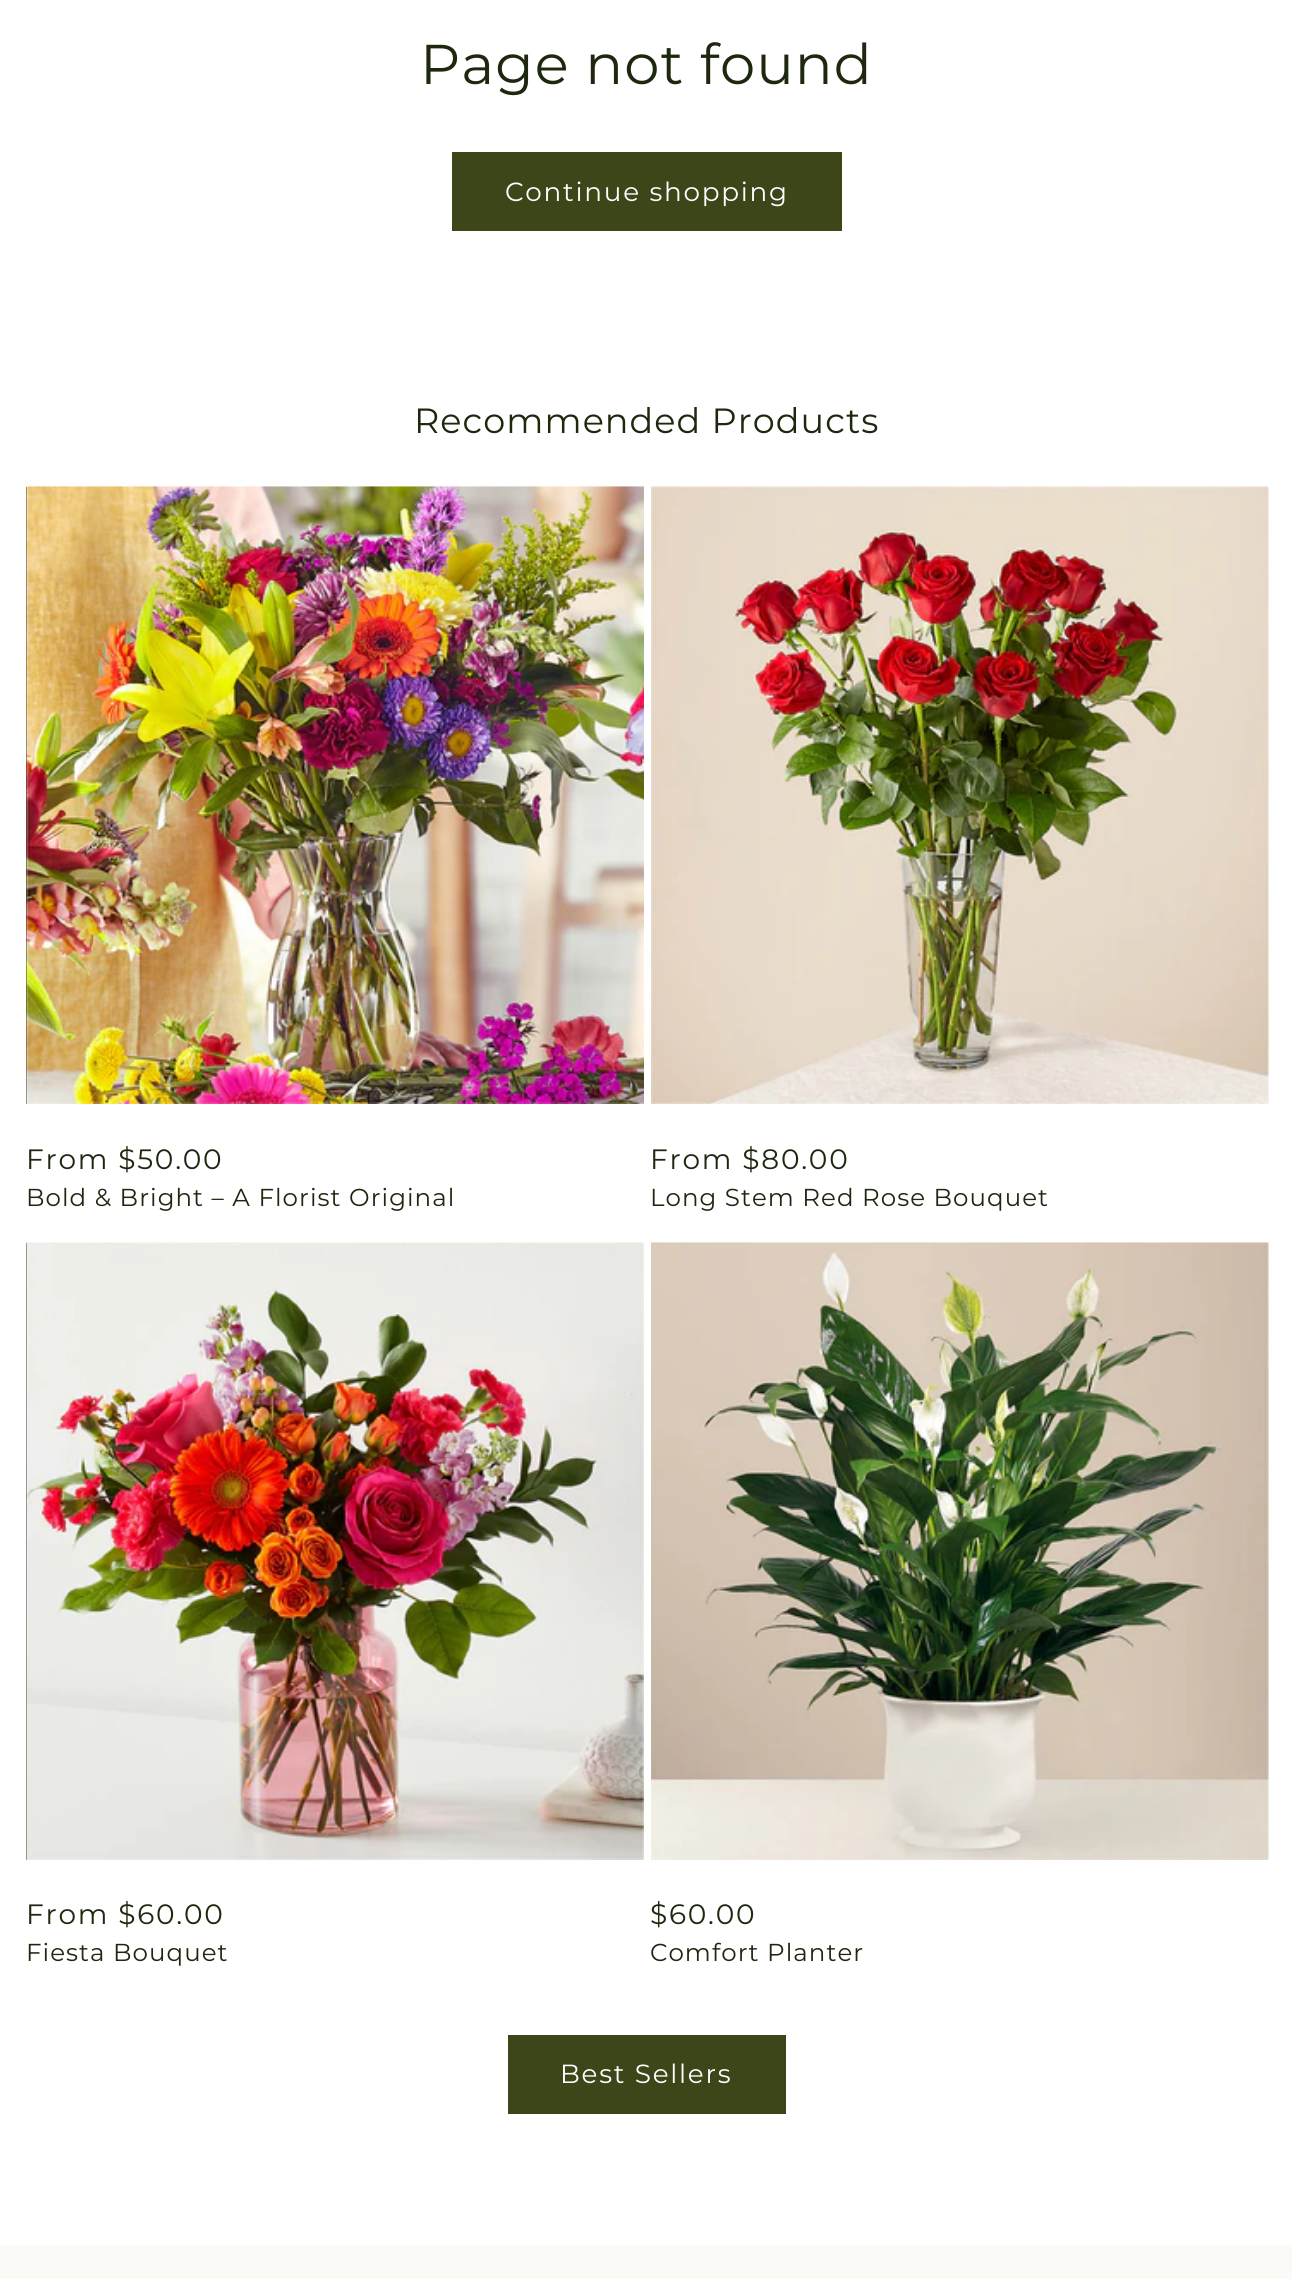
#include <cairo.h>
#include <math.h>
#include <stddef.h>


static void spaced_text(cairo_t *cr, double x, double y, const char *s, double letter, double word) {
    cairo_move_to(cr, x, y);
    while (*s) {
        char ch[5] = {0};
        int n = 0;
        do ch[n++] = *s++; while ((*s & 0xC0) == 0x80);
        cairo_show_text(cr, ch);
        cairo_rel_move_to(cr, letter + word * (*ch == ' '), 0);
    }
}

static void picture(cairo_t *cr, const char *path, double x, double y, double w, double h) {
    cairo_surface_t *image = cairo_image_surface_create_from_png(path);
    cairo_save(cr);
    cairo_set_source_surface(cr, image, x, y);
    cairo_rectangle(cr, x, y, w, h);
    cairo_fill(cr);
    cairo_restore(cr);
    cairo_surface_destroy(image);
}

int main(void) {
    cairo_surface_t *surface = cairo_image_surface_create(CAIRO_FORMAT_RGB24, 1292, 2279);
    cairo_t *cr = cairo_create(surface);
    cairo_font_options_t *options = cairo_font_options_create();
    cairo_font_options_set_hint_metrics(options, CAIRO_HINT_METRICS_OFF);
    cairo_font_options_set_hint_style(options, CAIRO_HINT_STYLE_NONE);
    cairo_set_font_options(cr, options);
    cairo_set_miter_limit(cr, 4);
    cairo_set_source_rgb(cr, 1, 1, 1);
    cairo_paint(cr);
    cairo_select_font_face(cr, "Montserrat", CAIRO_FONT_SLANT_NORMAL, CAIRO_FONT_WEIGHT_NORMAL);
    cairo_set_font_size(cr, 56);
    cairo_set_source_rgb(cr, 0.118, 0.157, 0.059);
    spaced_text(cr, 420, 84, "Page not found", 1.05, 0);
    cairo_set_source_rgb(cr, 0.235, 0.275, 0.094);
    cairo_rectangle(cr, 452, 152, 390, 79);
    cairo_fill(cr);
    cairo_set_font_size(cr, 26.25);
    cairo_set_source_rgb(cr, 1, 1, 1);
    spaced_text(cr, 505, 201, "Continue shopping", 1.75, 0);
    cairo_set_font_size(cr, 35);
    cairo_set_source_rgb(cr, 0.118, 0.157, 0.059);
    spaced_text(cr, 414, 433, "Recommended Products", 1.05, 0);
    cairo_rectangle(cr, 26, 487, 1, 617);
    cairo_fill(cr);
    picture(cr, "img1.png", 26, 486, 618, 618);
    cairo_set_font_size(cr, 28);
    spaced_text(cr, 26, 1169, "From $50.00", 1.75, 0);
    cairo_set_font_size(cr, 24.5);
    spaced_text(cr, 26, 1206, "Bold & Bright – A Florist Original", 1.05, 0);
    picture(cr, "img2.png", 651, 486, 618, 618);
    cairo_set_font_size(cr, 28);
    spaced_text(cr, 650, 1169, "From $80.00", 1.75, 0);
    cairo_set_font_size(cr, 24.5);
    spaced_text(cr, 650, 1206, "Long Stem Red Rose Bouquet", 1.05, 0);
    cairo_rectangle(cr, 26, 1243, 1, 617);
    cairo_fill(cr);
    picture(cr, "img3.png", 26, 1242, 618, 618);
    cairo_set_font_size(cr, 28);
    spaced_text(cr, 26, 1924, "From $60.00", 1.75, 0);
    cairo_set_font_size(cr, 24.5);
    spaced_text(cr, 26, 1961, "Fiesta Bouquet", 1.05, 0);
    picture(cr, "img4.png", 651, 1242, 618, 618);
    cairo_set_font_size(cr, 28);
    spaced_text(cr, 650, 1924, "$60.00", 1.75, 0);
    cairo_set_font_size(cr, 24.5);
    spaced_text(cr, 650, 1961, "Comfort Planter", 1.05, 0);
    cairo_set_source_rgb(cr, 0.235, 0.275, 0.094);
    cairo_rectangle(cr, 508, 2035, 278, 79);
    cairo_fill(cr);
    cairo_set_font_size(cr, 26.25);
    cairo_set_source_rgb(cr, 1, 1, 1);
    spaced_text(cr, 560, 2083, "Best Sellers", 1.75, 0);
    cairo_set_source_rgb(cr, 0.98, 0.98, 0.961);
    cairo_rectangle(cr, 0, 2245, 1292, 34);
    cairo_fill(cr);
    cairo_surface_write_to_png(surface, "page.png");
    cairo_font_options_destroy(options);
    cairo_destroy(cr);
    cairo_surface_destroy(surface);
    return 0;
}
